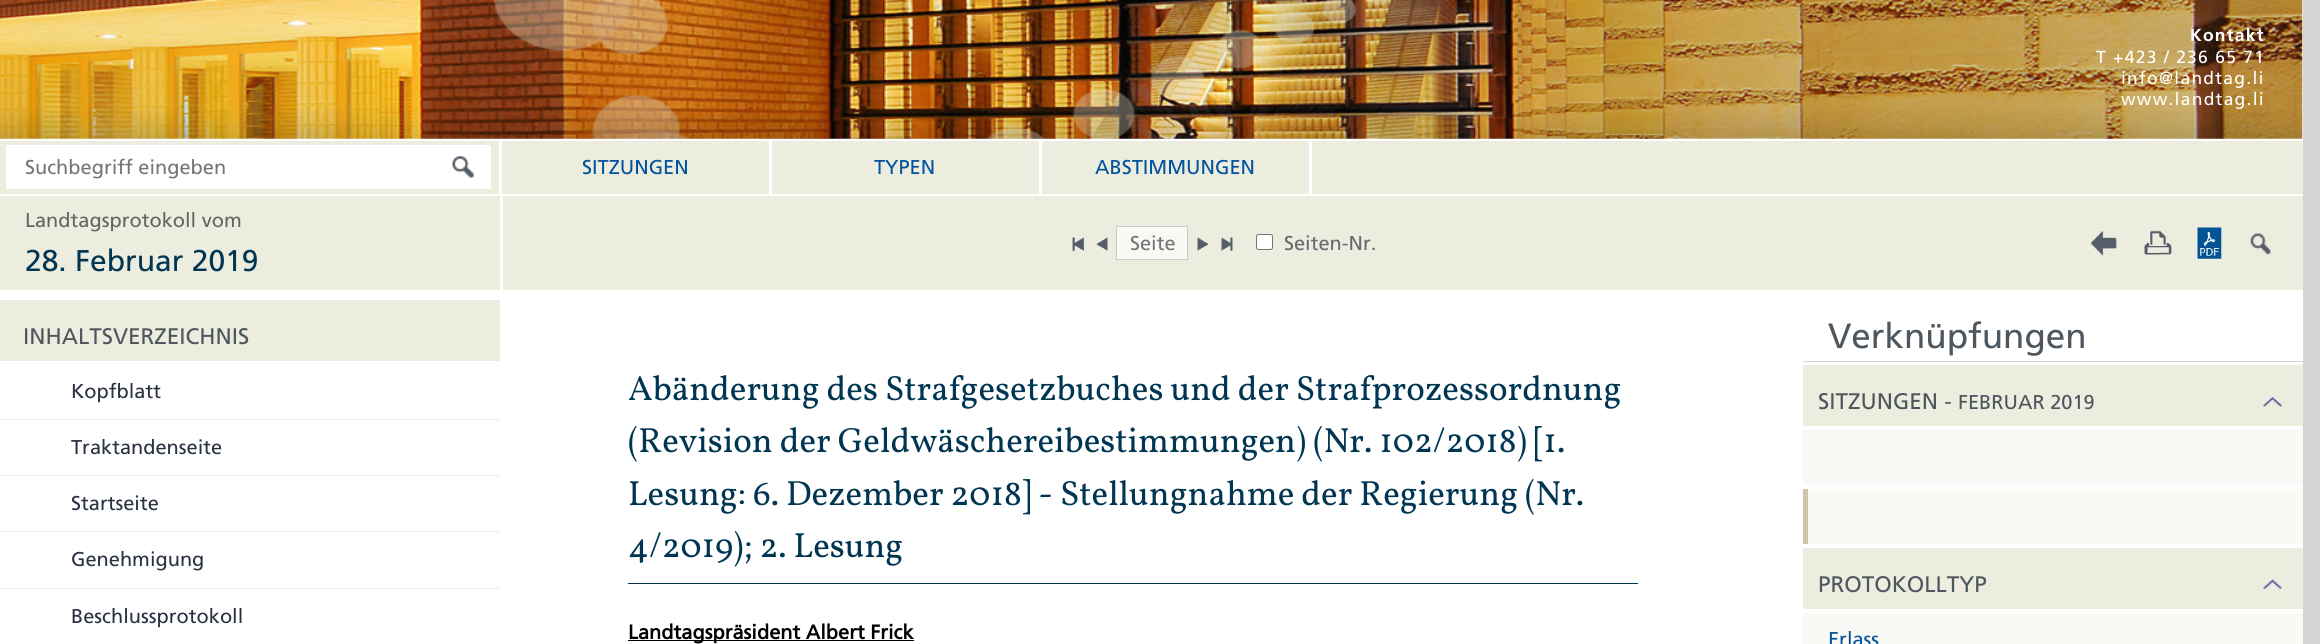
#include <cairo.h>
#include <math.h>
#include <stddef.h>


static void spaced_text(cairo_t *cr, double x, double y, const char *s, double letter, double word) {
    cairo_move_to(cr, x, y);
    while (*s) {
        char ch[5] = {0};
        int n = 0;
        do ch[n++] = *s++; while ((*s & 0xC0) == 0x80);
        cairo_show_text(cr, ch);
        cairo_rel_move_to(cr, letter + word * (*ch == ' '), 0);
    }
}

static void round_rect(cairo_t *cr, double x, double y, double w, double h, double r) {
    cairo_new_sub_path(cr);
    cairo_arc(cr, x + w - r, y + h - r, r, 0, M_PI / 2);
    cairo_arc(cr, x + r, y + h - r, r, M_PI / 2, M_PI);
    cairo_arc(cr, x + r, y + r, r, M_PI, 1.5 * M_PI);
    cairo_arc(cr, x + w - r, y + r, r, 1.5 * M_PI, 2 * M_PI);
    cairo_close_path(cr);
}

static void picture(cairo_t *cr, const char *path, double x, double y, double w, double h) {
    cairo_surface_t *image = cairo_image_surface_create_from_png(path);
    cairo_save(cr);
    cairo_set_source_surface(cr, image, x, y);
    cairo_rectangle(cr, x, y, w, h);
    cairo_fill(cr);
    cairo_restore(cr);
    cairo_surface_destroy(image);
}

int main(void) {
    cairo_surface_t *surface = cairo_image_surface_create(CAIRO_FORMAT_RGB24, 2320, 644);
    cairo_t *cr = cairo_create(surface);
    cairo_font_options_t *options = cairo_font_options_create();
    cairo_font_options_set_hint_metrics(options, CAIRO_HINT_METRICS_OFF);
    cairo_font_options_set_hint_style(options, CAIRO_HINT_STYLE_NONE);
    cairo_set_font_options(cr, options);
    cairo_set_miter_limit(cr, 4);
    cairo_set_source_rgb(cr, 0.835, 0.835, 0.835);
    cairo_paint(cr);
    cairo_set_source_rgb(cr, 1, 1, 1);
    cairo_rectangle(cr, 0, 0, 2303, 644);
    cairo_fill(cr);
    picture(cr, "img1.png", 0, 0, 2303, 139);
    cairo_select_font_face(cr, "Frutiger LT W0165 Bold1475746", CAIRO_FONT_SLANT_NORMAL, CAIRO_FONT_WEIGHT_BOLD);
    cairo_set_font_size(cr, 17.5);
    spaced_text(cr, 2190, 41, "Kontakt", 1.25, 0);
    cairo_select_font_face(cr, "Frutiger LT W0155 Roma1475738", CAIRO_FONT_SLANT_NORMAL, CAIRO_FONT_WEIGHT_NORMAL);
    spaced_text(cr, 2096, 63, "T +423 / 236 65 71", 1.25, 0);
    spaced_text(cr, 2121, 84, "info@landtag.li", 1.25, 0);
    spaced_text(cr, 2121, 105, "www.landtag.li", 1.25, 0);
    cairo_set_source_rgb(cr, 0.922, 0.922, 0.875);
    cairo_rectangle(cr, 0, 141, 2303, 53);
    cairo_fill(cr);
    cairo_set_source_rgb(cr, 1, 1, 1);
    cairo_rectangle(cr, 6, 145, 485, 44);
    cairo_fill(cr);
    cairo_set_font_size(cr, 20);
    cairo_set_source_rgb(cr, 0.459, 0.459, 0.459);
    cairo_move_to(cr, 25, 174);
    cairo_show_text(cr, "Suchbegriff eingeben");
    picture(cr, "img2.png", 452, 156, 22, 22);
    cairo_set_source_rgb(cr, 1, 1, 1);
    cairo_rectangle(cr, 499, 141, 3, 53);
    cairo_fill(cr);
    cairo_rectangle(cr, 769, 140, 3, 55);
    cairo_fill(cr);
    cairo_set_source_rgb(cr, 0, 0.325, 0.612);
    cairo_move_to(cr, 582, 174);
    cairo_show_text(cr, "SITZUNGEN");
    cairo_set_source_rgb(cr, 1, 1, 1);
    cairo_rectangle(cr, 1039, 140, 3, 55);
    cairo_fill(cr);
    cairo_set_source_rgb(cr, 0, 0.325, 0.612);
    cairo_move_to(cr, 874, 174);
    cairo_show_text(cr, "TYPEN");
    cairo_set_source_rgb(cr, 1, 1, 1);
    cairo_rectangle(cr, 1309, 140, 3, 55);
    cairo_fill(cr);
    cairo_set_source_rgb(cr, 0, 0.325, 0.612);
    cairo_move_to(cr, 1095, 174);
    cairo_show_text(cr, "ABSTIMMUNGEN");
    cairo_set_source_rgb(cr, 0.922, 0.922, 0.875);
    cairo_rectangle(cr, 0, 196, 2303, 94);
    cairo_fill(cr);
    cairo_set_source_rgb(cr, 0.392, 0.392, 0.392);
    cairo_move_to(cr, 25, 227);
    cairo_show_text(cr, "Landtagsprotokoll vom");
    cairo_set_source_rgb(cr, 1, 1, 1);
    cairo_rectangle(cr, 500, 196, 3, 94);
    cairo_fill(cr);
    picture(cr, "img3.png", 1072, 237, 12, 14);
    picture(cr, "img4.png", 1096, 237, 12, 14);
    cairo_set_source_rgb(cr, 0.976, 0.976, 0.961);
    cairo_rectangle(cr, 1116.5, 226.5, 71, 33);
    cairo_fill_preserve(cr);
    cairo_set_source_rgb(cr, 0.8, 0.8, 0.8);
    cairo_set_line_width(cr, 1);
    cairo_stroke(cr);
    cairo_set_source_rgb(cr, 0.459, 0.459, 0.459);
    cairo_move_to(cr, 1130, 250);
    cairo_show_text(cr, "Seite");
    picture(cr, "img5.png", 1197, 237, 12, 14);
    picture(cr, "img6.png", 1221, 237, 12, 14);
    cairo_set_source_rgb(cr, 1, 1, 1);
    round_rect(cr, 1256.5, 234.5, 16, 15, 2);
    cairo_fill_preserve(cr);
    cairo_set_source_rgb(cr, 0.463, 0.463, 0.463);
    cairo_stroke(cr);
    cairo_set_source_rgb(cr, 0.408, 0.412, 0.431);
    cairo_move_to(cr, 1284, 250);
    cairo_show_text(cr, "Seiten-Nr.");
    picture(cr, "img7.png", 2090, 231, 27, 25);
    picture(cr, "img8.png", 2144, 230, 28, 25);
    picture(cr, "img9.png", 2197, 227, 25, 32);
    picture(cr, "img10.png", 2250, 233, 21, 22);
    cairo_set_font_size(cr, 30);
    cairo_set_source_rgb(cr, 0, 0.212, 0.322);
    cairo_move_to(cr, 25, 271);
    cairo_show_text(cr, "28. Februar 2019");
    cairo_set_source_rgb(cr, 0.922, 0.922, 0.875);
    cairo_rectangle(cr, 0, 300, 500, 61);
    cairo_fill(cr);
    cairo_set_font_size(cr, 22.5);
    cairo_set_source_rgb(cr, 0.306, 0.337, 0.369);
    cairo_move_to(cr, 23, 344);
    cairo_show_text(cr, "INHALTSVERZEICHNIS");
    cairo_set_source_rgb(cr, 0.937, 0.937, 0.937);
    cairo_rectangle(cr, 0, 419, 500, 1);
    cairo_fill(cr);
    cairo_set_font_size(cr, 20);
    cairo_set_source_rgb(cr, 0.165, 0.196, 0.259);
    cairo_move_to(cr, 71, 398);
    cairo_show_text(cr, "Kopfblatt");
    cairo_set_source_rgb(cr, 0.937, 0.937, 0.937);
    cairo_rectangle(cr, 0, 475, 500, 1);
    cairo_fill(cr);
    cairo_set_source_rgb(cr, 0.165, 0.196, 0.259);
    cairo_move_to(cr, 71, 454);
    cairo_show_text(cr, "Traktandenseite");
    cairo_set_source_rgb(cr, 0.937, 0.937, 0.937);
    cairo_rectangle(cr, 0, 531, 500, 1);
    cairo_fill(cr);
    cairo_set_source_rgb(cr, 0.165, 0.196, 0.259);
    cairo_move_to(cr, 71, 510);
    cairo_show_text(cr, "Startseite");
    cairo_set_source_rgb(cr, 0.937, 0.937, 0.937);
    cairo_rectangle(cr, 0, 588, 500, 1);
    cairo_fill(cr);
    cairo_set_source_rgb(cr, 0.165, 0.196, 0.259);
    cairo_move_to(cr, 71, 566);
    cairo_show_text(cr, "Genehmigung");
    cairo_move_to(cr, 71, 623);
    cairo_show_text(cr, "Beschlussprotokoll");
    cairo_set_source_rgb(cr, 0, 0.212, 0.322);
    cairo_rectangle(cr, 628, 583, 1010, 1);
    cairo_fill(cr);
    cairo_select_font_face(cr, "Vollkorn", CAIRO_FONT_SLANT_NORMAL, CAIRO_FONT_WEIGHT_NORMAL);
    cairo_set_font_size(cr, 35);
    cairo_move_to(cr, 628, 400);
    cairo_show_text(cr, "Abänderung des Strafgesetzbuches und der Strafprozessordnung");
    cairo_move_to(cr, 628, 452);
    cairo_show_text(cr, "(Revision der Geldwäschereibestimmungen) (Nr. 102/2018) [1.");
    cairo_move_to(cr, 628, 505);
    cairo_show_text(cr, "Lesung: 6. Dezember 2018] - Stellungnahme der Regierung (Nr.");
    cairo_move_to(cr, 628, 557);
    cairo_show_text(cr, "4/2019); 2. Lesung");
    cairo_set_source_rgb(cr, 0, 0, 0);
    cairo_rectangle(cr, 628, 640, 286, 1);
    cairo_fill(cr);
    cairo_select_font_face(cr, "Frutiger LT W0155 Roma1475738", CAIRO_FONT_SLANT_NORMAL, CAIRO_FONT_WEIGHT_BOLD);
    cairo_set_font_size(cr, 20);
    cairo_move_to(cr, 628, 639);
    cairo_show_text(cr, "Landtagspräsident Albert Frick");
    cairo_set_source_rgb(cr, 0.835, 0.835, 0.835);
    cairo_rectangle(cr, 1803, 361, 500, 1);
    cairo_fill(cr);
    cairo_select_font_face(cr, "Frutiger LT W0155 Roma1475738", CAIRO_FONT_SLANT_NORMAL, CAIRO_FONT_WEIGHT_NORMAL);
    cairo_set_font_size(cr, 35);
    cairo_set_source_rgb(cr, 0.306, 0.337, 0.369);
    cairo_move_to(cr, 1828, 348);
    cairo_show_text(cr, "Verknüpfungen");
    cairo_set_source_rgb(cr, 0.922, 0.922, 0.875);
    cairo_rectangle(cr, 1803, 365, 500, 61);
    cairo_fill(cr);
    cairo_set_font_size(cr, 22.5);
    cairo_set_source_rgb(cr, 0.306, 0.337, 0.369);
    cairo_move_to(cr, 1818, 409);
    cairo_show_text(cr, "SITZUNGEN -");
    cairo_set_font_size(cr, 20);
    cairo_move_to(cr, 1958, 409);
    cairo_show_text(cr, "FEBRUAR 2019");
    picture(cr, "img11.png", 2263, 397, 19, 10);
    cairo_set_source_rgb(cr, 0.976, 0.976, 0.961);
    cairo_rectangle(cr, 1803, 430, 500, 55);
    cairo_fill(cr);
    cairo_rectangle(cr, 1808, 489, 495, 55);
    cairo_fill(cr);
    cairo_set_source_rgb(cr, 0.816, 0.769, 0.675);
    cairo_rectangle(cr, 1803, 489, 5, 55);
    cairo_fill(cr);
    cairo_set_source_rgb(cr, 0.922, 0.922, 0.875);
    cairo_rectangle(cr, 1803, 548, 500, 61);
    cairo_fill(cr);
    cairo_set_font_size(cr, 22.5);
    cairo_set_source_rgb(cr, 0.306, 0.337, 0.369);
    cairo_move_to(cr, 1818, 592);
    cairo_show_text(cr, "PROTOKOLLTYP");
    picture(cr, "img12.png", 2263, 579, 19, 10);
    cairo_set_source_rgb(cr, 0.976, 0.976, 0.961);
    cairo_rectangle(cr, 1803, 613, 500, 31);
    cairo_fill(cr);
    cairo_set_font_size(cr, 20);
    cairo_set_source_rgb(cr, 0, 0.325, 0.612);
    cairo_move_to(cr, 1828, 646);
    cairo_show_text(cr, "Erlass");
    cairo_surface_write_to_png(surface, "page.png");
    cairo_font_options_destroy(options);
    cairo_destroy(cr);
    cairo_surface_destroy(surface);
    return 0;
}
